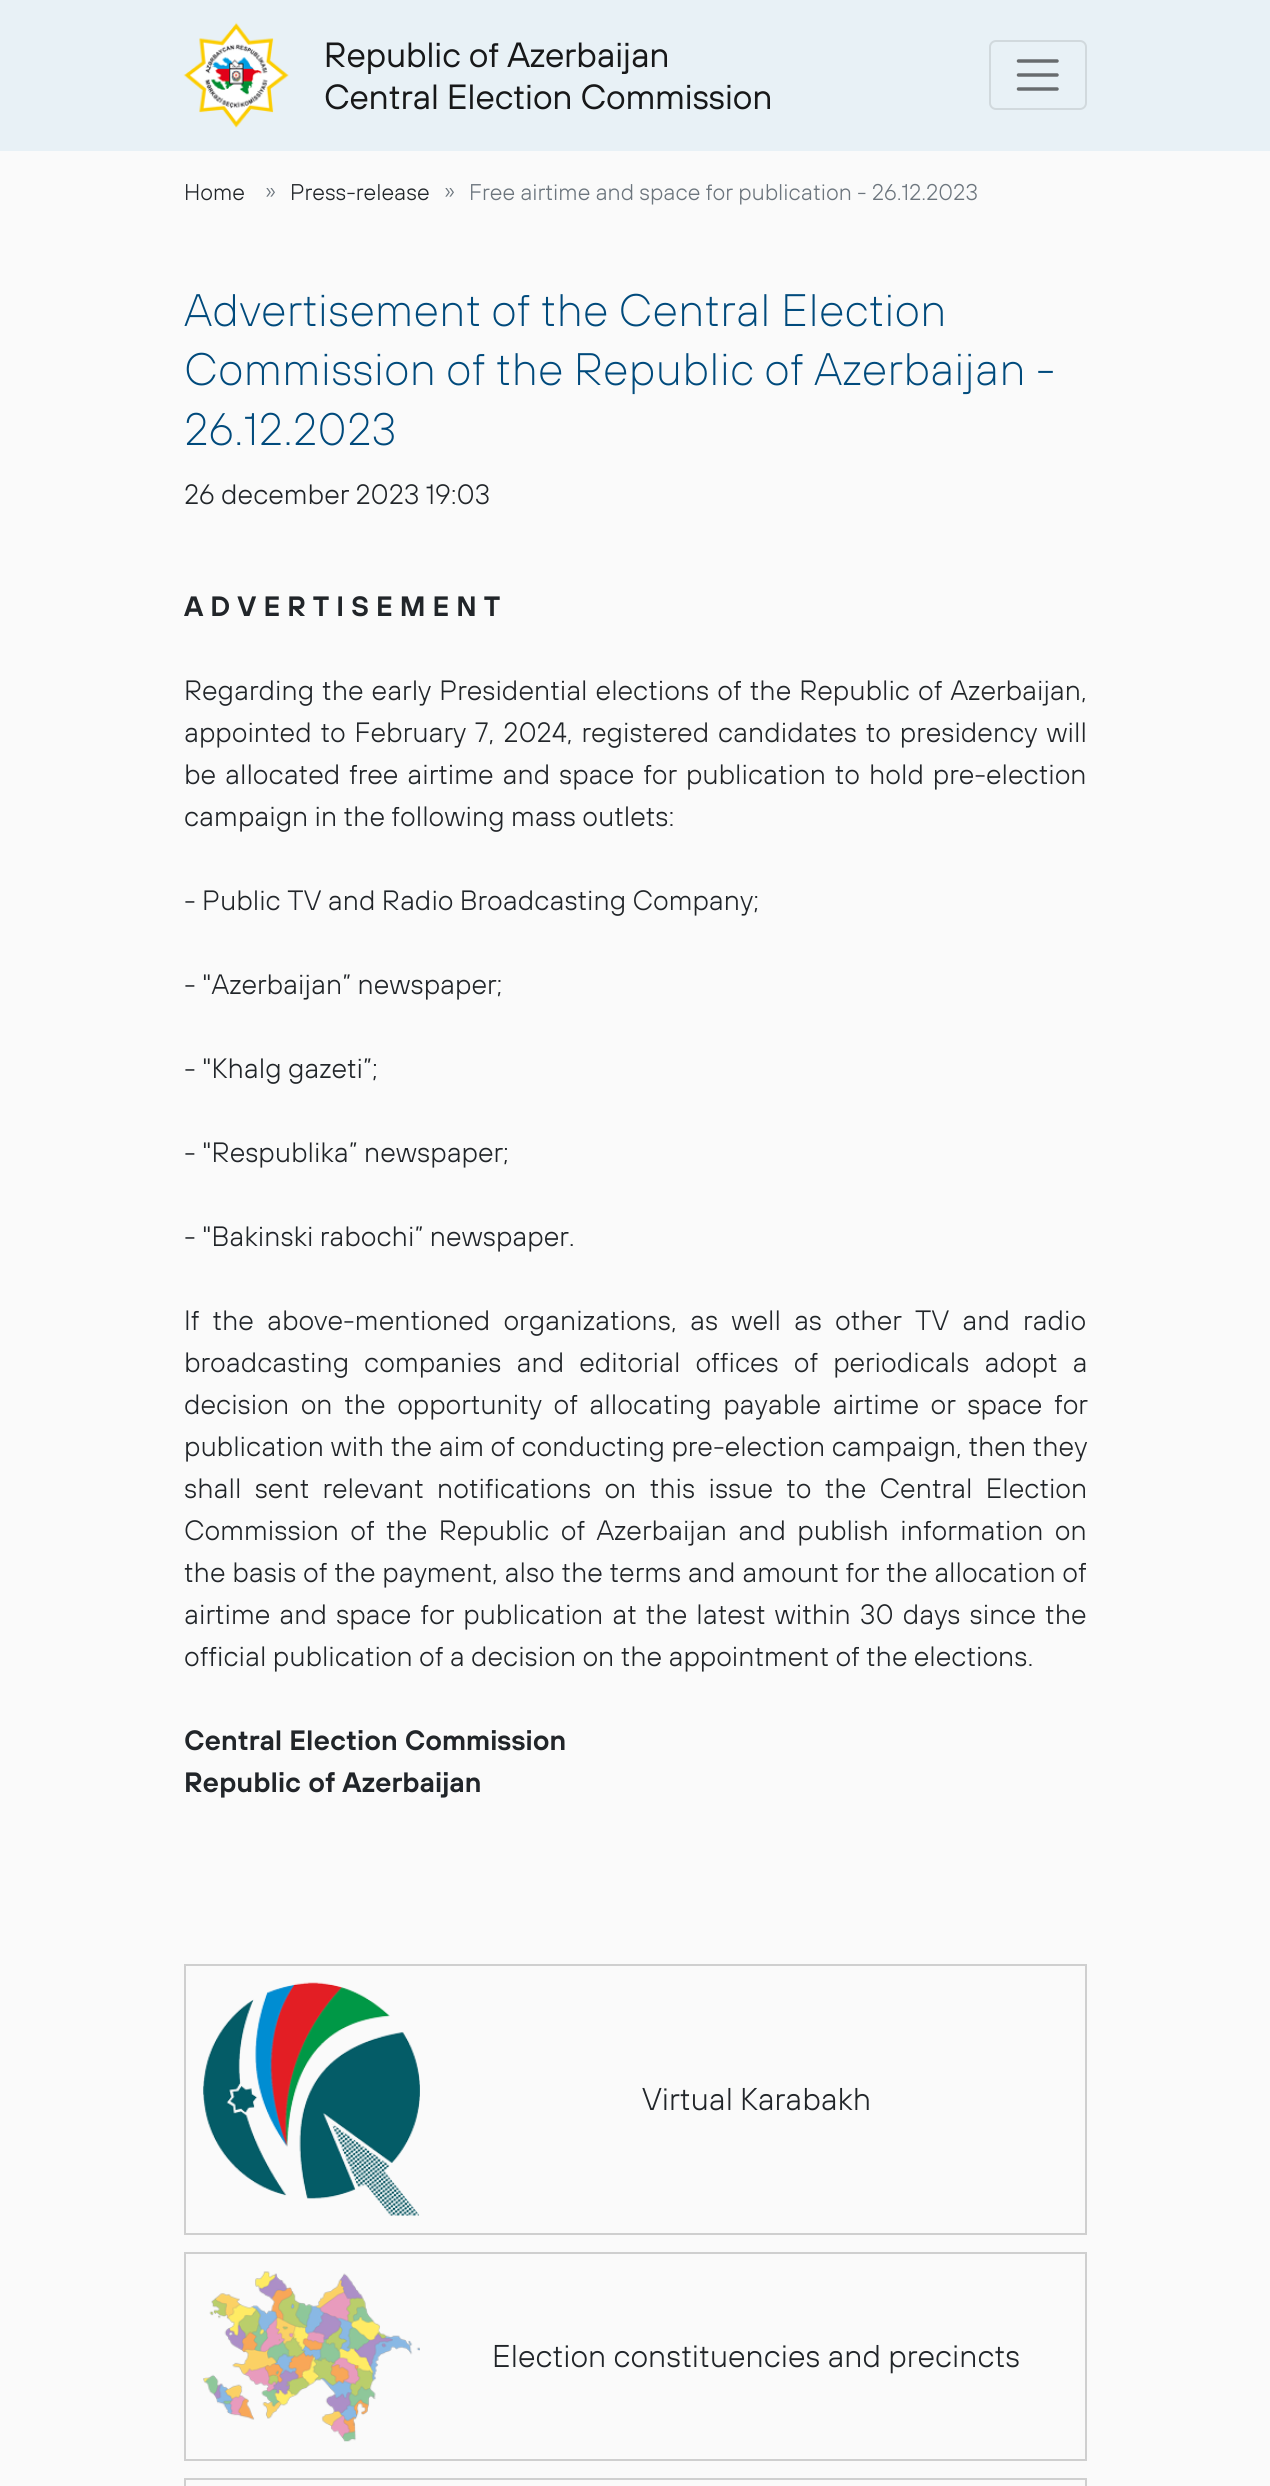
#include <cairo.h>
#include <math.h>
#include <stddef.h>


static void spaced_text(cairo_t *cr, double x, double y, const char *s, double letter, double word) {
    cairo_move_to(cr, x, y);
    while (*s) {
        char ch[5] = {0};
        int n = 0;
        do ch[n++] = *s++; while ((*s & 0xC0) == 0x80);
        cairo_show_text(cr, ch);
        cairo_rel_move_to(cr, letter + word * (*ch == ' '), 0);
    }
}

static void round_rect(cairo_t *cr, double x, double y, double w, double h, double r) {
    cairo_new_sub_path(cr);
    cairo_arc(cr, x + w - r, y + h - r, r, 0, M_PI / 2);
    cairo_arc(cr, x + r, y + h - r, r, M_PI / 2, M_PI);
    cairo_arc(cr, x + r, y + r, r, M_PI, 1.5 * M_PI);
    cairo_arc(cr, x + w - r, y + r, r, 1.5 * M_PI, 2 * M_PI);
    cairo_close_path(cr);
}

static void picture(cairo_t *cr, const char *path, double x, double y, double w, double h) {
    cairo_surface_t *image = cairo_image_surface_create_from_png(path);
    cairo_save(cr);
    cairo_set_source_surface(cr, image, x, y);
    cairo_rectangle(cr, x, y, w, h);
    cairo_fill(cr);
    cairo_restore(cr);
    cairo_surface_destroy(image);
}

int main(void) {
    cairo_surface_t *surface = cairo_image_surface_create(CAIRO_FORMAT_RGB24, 1270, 2486);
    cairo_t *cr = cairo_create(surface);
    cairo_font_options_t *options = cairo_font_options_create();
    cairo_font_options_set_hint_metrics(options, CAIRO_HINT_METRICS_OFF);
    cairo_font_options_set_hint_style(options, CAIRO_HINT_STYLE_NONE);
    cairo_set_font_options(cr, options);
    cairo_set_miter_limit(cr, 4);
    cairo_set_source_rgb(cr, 0.98, 0.98, 0.98);
    cairo_paint(cr);
    cairo_set_source_rgb(cr, 0.91, 0.945, 0.961);
    cairo_rectangle(cr, 0, 0, 1270, 151);
    cairo_fill(cr);
    picture(cr, "img1.png", 183, 22, 106, 106);
    cairo_select_font_face(cr, "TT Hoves", CAIRO_FONT_SLANT_NORMAL, CAIRO_FONT_WEIGHT_NORMAL);
    cairo_set_font_size(cr, 35);
    cairo_set_source_rgb(cr, 0.09, 0.094, 0.098);
    cairo_move_to(cr, 324, 67);
    cairo_show_text(cr, "Republic of Azerbaijan");
    cairo_move_to(cr, 324, 109);
    cairo_show_text(cr, "Central Election Commission");
    round_rect(cr, 990, 41, 96, 68, 6);
    cairo_set_source_rgb(cr, 0.82, 0.851, 0.867);
    cairo_stroke(cr);
    cairo_new_path(cr);
    cairo_move_to(cr, 1018.5, 61);
    cairo_line_to(cr, 1057, 61);
    cairo_move_to(cr, 1018.5, 75);
    cairo_line_to(cr, 1057, 75);
    cairo_move_to(cr, 1018.5, 89);
    cairo_line_to(cr, 1057, 89);
    cairo_set_source_rgb(cr, 0.408, 0.424, 0.431);
    cairo_set_line_width(cr, 3.5);
    cairo_set_line_cap(cr, CAIRO_LINE_CAP_ROUND);
    cairo_stroke(cr);
    cairo_select_font_face(cr, "TT Hoves Light", CAIRO_FONT_SLANT_NORMAL, CAIRO_FONT_WEIGHT_NORMAL);
    cairo_set_font_size(cr, 22.75);
    cairo_set_source_rgb(cr, 0.129, 0.145, 0.161);
    cairo_move_to(cr, 184, 200);
    cairo_show_text(cr, "Home");
    cairo_set_source_rgb(cr, 0.424, 0.459, 0.49);
    cairo_move_to(cr, 265, 198);
    cairo_show_text(cr, "»");
    cairo_set_source_rgb(cr, 0.129, 0.145, 0.161);
    cairo_move_to(cr, 290, 200);
    cairo_show_text(cr, "Press-release");
    cairo_set_source_rgb(cr, 0.424, 0.459, 0.49);
    cairo_move_to(cr, 444, 198);
    cairo_show_text(cr, "»");
    cairo_move_to(cr, 469, 200);
    cairo_show_text(cr, "Free airtime and space for publication - 26.12.2023");
    cairo_select_font_face(cr, "TT Hoves ExtraLight", CAIRO_FONT_SLANT_NORMAL, CAIRO_FONT_WEIGHT_NORMAL);
    cairo_set_font_size(cr, 45.5);
    cairo_set_source_rgb(cr, 0, 0.29, 0.486);
    cairo_move_to(cr, 184, 326);
    cairo_show_text(cr, "Advertisement of the Central Election");
    cairo_move_to(cr, 184, 385);
    cairo_show_text(cr, "Commission of the Republic of Azerbaijan -");
    cairo_move_to(cr, 184, 445);
    cairo_show_text(cr, "26.12.2023");
    cairo_select_font_face(cr, "TT Hoves Light", CAIRO_FONT_SLANT_NORMAL, CAIRO_FONT_WEIGHT_NORMAL);
    cairo_set_font_size(cr, 28);
    cairo_set_source_rgb(cr, 0.129, 0.145, 0.161);
    cairo_move_to(cr, 184, 504);
    cairo_show_text(cr, "26 december 2023 19:03");
    cairo_select_font_face(cr, "TT Hoves SemiBold", CAIRO_FONT_SLANT_NORMAL, CAIRO_FONT_WEIGHT_NORMAL);
    cairo_move_to(cr, 184, 616);
    cairo_show_text(cr, "A D V E R T I S E M E N T");
    cairo_select_font_face(cr, "TT Hoves Light", CAIRO_FONT_SLANT_NORMAL, CAIRO_FONT_WEIGHT_NORMAL);
    spaced_text(cr, 184, 700, "Regarding the early Presidential elections of the Republic of Azerbaijan,", 0, 1.75);
    spaced_text(cr, 184, 742, "appointed to February 7, 2024, registered candidates to presidency will", 0, 2.5);
    spaced_text(cr, 184, 784, "be allocated free airtime and space for publication to hold pre-election", 0, 2.6);
    cairo_move_to(cr, 184, 826);
    cairo_show_text(cr, "campaign in the following mass outlets:");
    cairo_move_to(cr, 184, 910);
    cairo_show_text(cr, "- Public TV and Radio Broadcasting Company;");
    cairo_move_to(cr, 184, 994);
    cairo_show_text(cr, "- \"Azerbaijan” newspaper;");
    cairo_move_to(cr, 184, 1078);
    cairo_show_text(cr, "- \"Khalg gazeti”;");
    cairo_move_to(cr, 184, 1162);
    cairo_show_text(cr, "- \"Respublika” newspaper;");
    cairo_move_to(cr, 184, 1246);
    cairo_show_text(cr, "- \"Bakinski rabochi” newspaper.");
    spaced_text(cr, 184, 1330, "If the above-mentioned organizations, as well as other TV and radio", 0, 6.75);
    spaced_text(cr, 184, 1372, "broadcasting companies and editorial offices of periodicals adopt a", 0, 8.75);
    spaced_text(cr, 184, 1414, "decision on the opportunity of allocating payable airtime or space for", 0, 5.25);
    spaced_text(cr, 184, 1456, "publication with the aim of conducting pre-election campaign, then they", 0, 0.25);
    spaced_text(cr, 184, 1498, "shall sent relevant notifications on this issue to the Central Election", 0, 7);
    spaced_text(cr, 184, 1540, "Commission of the Republic of Azerbaijan and publish information on", 0, 5);
    spaced_text(cr, 184, 1582, "the basis of the payment, also the terms and amount for the allocation of", 0, 0.4);
    spaced_text(cr, 184, 1624, "airtime and space for publication at the latest within 30 days since the", 0, 2.75);
    cairo_move_to(cr, 184, 1666);
    cairo_show_text(cr, "official publication of a decision on the appointment of the elections.");
    cairo_select_font_face(cr, "TT Hoves SemiBold", CAIRO_FONT_SLANT_NORMAL, CAIRO_FONT_WEIGHT_NORMAL);
    cairo_move_to(cr, 184, 1750);
    cairo_show_text(cr, "Central Election Commission");
    cairo_move_to(cr, 184, 1792);
    cairo_show_text(cr, "Republic of Azerbaijan");
    cairo_rectangle(cr, 185, 1965, 901, 269);
    cairo_set_source_rgb(cr, 0.812, 0.812, 0.812);
    cairo_set_line_width(cr, 2);
    cairo_set_line_cap(cr, CAIRO_LINE_CAP_BUTT);
    cairo_stroke(cr);
    picture(cr, "img2.png", 203, 1982, 217, 234);
    cairo_select_font_face(cr, "TT Hoves Light", CAIRO_FONT_SLANT_NORMAL, CAIRO_FONT_WEIGHT_NORMAL);
    cairo_set_font_size(cr, 31.5);
    cairo_set_source_rgb(cr, 0.129, 0.145, 0.161);
    cairo_move_to(cr, 642, 2110);
    cairo_show_text(cr, "Virtual Karabakh");
    cairo_rectangle(cr, 185, 2253, 901, 207);
    cairo_set_source_rgb(cr, 0.812, 0.812, 0.812);
    cairo_stroke(cr);
    picture(cr, "img3.png", 203, 2271, 217, 171);
    cairo_set_source_rgb(cr, 0.129, 0.145, 0.161);
    cairo_move_to(cr, 492, 2367);
    cairo_show_text(cr, "Election constituencies and precincts");
    cairo_rectangle(cr, 185, 2479, 901, 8);
    cairo_set_source_rgb(cr, 0.812, 0.812, 0.812);
    cairo_stroke(cr);
    cairo_surface_write_to_png(surface, "page.png");
    cairo_font_options_destroy(options);
    cairo_destroy(cr);
    cairo_surface_destroy(surface);
    return 0;
}
